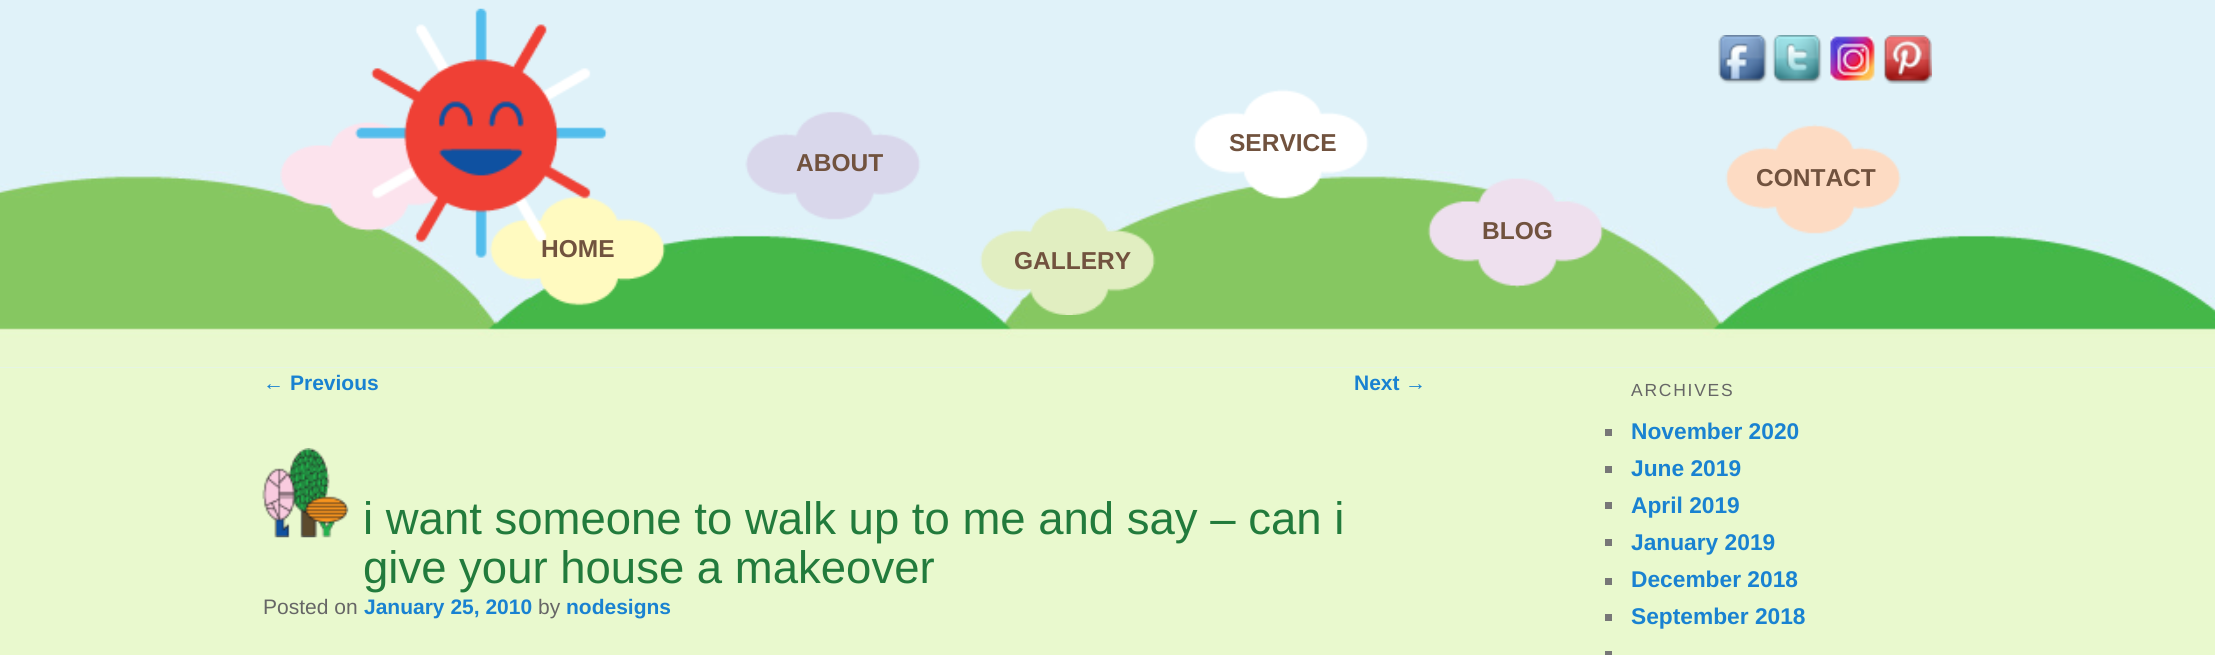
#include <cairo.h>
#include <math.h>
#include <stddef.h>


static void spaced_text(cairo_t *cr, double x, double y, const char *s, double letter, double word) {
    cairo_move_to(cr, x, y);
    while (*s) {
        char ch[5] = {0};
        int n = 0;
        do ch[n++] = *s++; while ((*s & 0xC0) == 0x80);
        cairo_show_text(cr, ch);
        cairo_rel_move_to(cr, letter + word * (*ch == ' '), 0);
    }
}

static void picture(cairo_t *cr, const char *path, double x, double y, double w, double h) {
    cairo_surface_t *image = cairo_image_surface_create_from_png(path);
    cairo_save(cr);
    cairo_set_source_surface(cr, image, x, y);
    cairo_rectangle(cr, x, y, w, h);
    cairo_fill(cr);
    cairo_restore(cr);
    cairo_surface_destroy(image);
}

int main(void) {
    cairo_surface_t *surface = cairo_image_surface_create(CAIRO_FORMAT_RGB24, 2215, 655);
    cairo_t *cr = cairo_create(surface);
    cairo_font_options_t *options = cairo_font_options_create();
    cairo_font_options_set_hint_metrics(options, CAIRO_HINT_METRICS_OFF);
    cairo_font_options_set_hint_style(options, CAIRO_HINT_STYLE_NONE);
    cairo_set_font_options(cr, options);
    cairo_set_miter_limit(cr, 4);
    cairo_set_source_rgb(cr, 0.914, 0.973, 0.808);
    cairo_paint(cr);
    cairo_set_source_rgb(cr, 0.878, 0.949, 0.976);
    cairo_rectangle(cr, 0, 0, 2215, 368);
    cairo_fill(cr);
    picture(cr, "img1.png", 0, 170, 2215, 198);
    picture(cr, "img2.png", 280, 8, 1621, 307);
    picture(cr, "img3.png", 1718, 35, 50, 49);
    picture(cr, "img4.png", 1772, 35, 50, 49);
    picture(cr, "img5.png", 1830, 36, 45, 45);
    picture(cr, "img6.png", 1883, 35, 49, 49);
    cairo_select_font_face(cr, "Liberation Sans", CAIRO_FONT_SLANT_NORMAL, CAIRO_FONT_WEIGHT_BOLD);
    cairo_set_font_size(cr, 24.5);
    cairo_set_source_rgb(cr, 0.443, 0.322, 0.243);
    cairo_move_to(cr, 1229, 151);
    cairo_show_text(cr, "SERVICE");
    cairo_move_to(cr, 796, 171);
    cairo_show_text(cr, "ABOUT");
    cairo_move_to(cr, 1756, 186);
    cairo_show_text(cr, "CONTACT");
    cairo_move_to(cr, 1482, 239);
    cairo_show_text(cr, "BLOG");
    cairo_move_to(cr, 541, 257);
    cairo_show_text(cr, "HOME");
    cairo_move_to(cr, 1014, 269);
    cairo_show_text(cr, "GALLERY");
    cairo_select_font_face(cr, "Liberation Sans", CAIRO_FONT_SLANT_NORMAL, CAIRO_FONT_WEIGHT_NORMAL);
    cairo_set_font_size(cr, 21);
    cairo_set_source_rgb(cr, 0.098, 0.51, 0.82);
    cairo_move_to(cr, 263, 390);
    cairo_show_text(cr, "←");
    cairo_select_font_face(cr, "Liberation Sans", CAIRO_FONT_SLANT_NORMAL, CAIRO_FONT_WEIGHT_BOLD);
    cairo_move_to(cr, 290, 390);
    cairo_show_text(cr, "Previous");
    cairo_move_to(cr, 1354, 390);
    cairo_show_text(cr, "Next");
    cairo_select_font_face(cr, "Liberation Sans", CAIRO_FONT_SLANT_NORMAL, CAIRO_FONT_WEIGHT_NORMAL);
    cairo_move_to(cr, 1405, 390);
    cairo_show_text(cr, "→");
    picture(cr, "img7.png", 262, 448, 87, 90);
    cairo_set_font_size(cr, 45.5);
    cairo_set_source_rgb(cr, 0.133, 0.482, 0.235);
    cairo_move_to(cr, 363, 534);
    cairo_show_text(cr, "i want someone to walk up to me and say – can i");
    cairo_move_to(cr, 363, 583);
    cairo_show_text(cr, "give your house a makeover");
    cairo_set_font_size(cr, 21);
    cairo_set_source_rgb(cr, 0.4, 0.4, 0.4);
    cairo_move_to(cr, 263, 614);
    cairo_show_text(cr, "Posted on");
    cairo_select_font_face(cr, "Liberation Sans", CAIRO_FONT_SLANT_NORMAL, CAIRO_FONT_WEIGHT_BOLD);
    cairo_set_source_rgb(cr, 0.098, 0.51, 0.82);
    cairo_move_to(cr, 364, 614);
    cairo_show_text(cr, "January 25, 2010");
    cairo_select_font_face(cr, "Liberation Sans", CAIRO_FONT_SLANT_NORMAL, CAIRO_FONT_WEIGHT_NORMAL);
    cairo_set_source_rgb(cr, 0.4, 0.4, 0.4);
    cairo_move_to(cr, 538, 614);
    cairo_show_text(cr, "by");
    cairo_select_font_face(cr, "Liberation Sans", CAIRO_FONT_SLANT_NORMAL, CAIRO_FONT_WEIGHT_BOLD);
    cairo_set_source_rgb(cr, 0.098, 0.51, 0.82);
    cairo_move_to(cr, 566, 614);
    cairo_show_text(cr, "nodesigns");
    cairo_select_font_face(cr, "Liberation Sans", CAIRO_FONT_SLANT_NORMAL, CAIRO_FONT_WEIGHT_NORMAL);
    cairo_set_font_size(cr, 17.5);
    cairo_set_source_rgb(cr, 0.4, 0.4, 0.4);
    spaced_text(cr, 1631, 396, "ARCHIVES", 1.75, 0);
    cairo_set_source_rgb(cr, 0.467, 0.467, 0.467);
    cairo_rectangle(cr, 1605, 429, 7, 7);
    cairo_fill(cr);
    cairo_select_font_face(cr, "Liberation Sans", CAIRO_FONT_SLANT_NORMAL, CAIRO_FONT_WEIGHT_BOLD);
    cairo_set_font_size(cr, 22.75);
    cairo_set_source_rgb(cr, 0.098, 0.51, 0.82);
    cairo_move_to(cr, 1631, 439);
    cairo_show_text(cr, "November 2020");
    cairo_set_source_rgb(cr, 0.467, 0.467, 0.467);
    cairo_rectangle(cr, 1605, 466, 7, 7);
    cairo_fill(cr);
    cairo_set_source_rgb(cr, 0.098, 0.51, 0.82);
    cairo_move_to(cr, 1631, 476);
    cairo_show_text(cr, "June 2019");
    cairo_set_source_rgb(cr, 0.467, 0.467, 0.467);
    cairo_rectangle(cr, 1605, 502, 7, 7);
    cairo_fill(cr);
    cairo_set_source_rgb(cr, 0.098, 0.51, 0.82);
    cairo_move_to(cr, 1631, 513);
    cairo_show_text(cr, "April 2019");
    cairo_set_source_rgb(cr, 0.467, 0.467, 0.467);
    cairo_rectangle(cr, 1605, 539, 7, 7);
    cairo_fill(cr);
    cairo_set_source_rgb(cr, 0.098, 0.51, 0.82);
    cairo_move_to(cr, 1631, 550);
    cairo_show_text(cr, "January 2019");
    cairo_set_source_rgb(cr, 0.467, 0.467, 0.467);
    cairo_rectangle(cr, 1605, 578, 7, 7);
    cairo_fill(cr);
    cairo_set_source_rgb(cr, 0.098, 0.51, 0.82);
    cairo_move_to(cr, 1631, 587);
    cairo_show_text(cr, "December 2018");
    cairo_set_source_rgb(cr, 0.467, 0.467, 0.467);
    cairo_rectangle(cr, 1605, 614, 7, 7);
    cairo_fill(cr);
    cairo_set_source_rgb(cr, 0.098, 0.51, 0.82);
    cairo_move_to(cr, 1631, 624);
    cairo_show_text(cr, "September 2018");
    cairo_set_source_rgb(cr, 0.467, 0.467, 0.467);
    cairo_rectangle(cr, 1605, 651, 7, 4);
    cairo_fill(cr);
    cairo_surface_write_to_png(surface, "page.png");
    cairo_font_options_destroy(options);
    cairo_destroy(cr);
    cairo_surface_destroy(surface);
    return 0;
}
